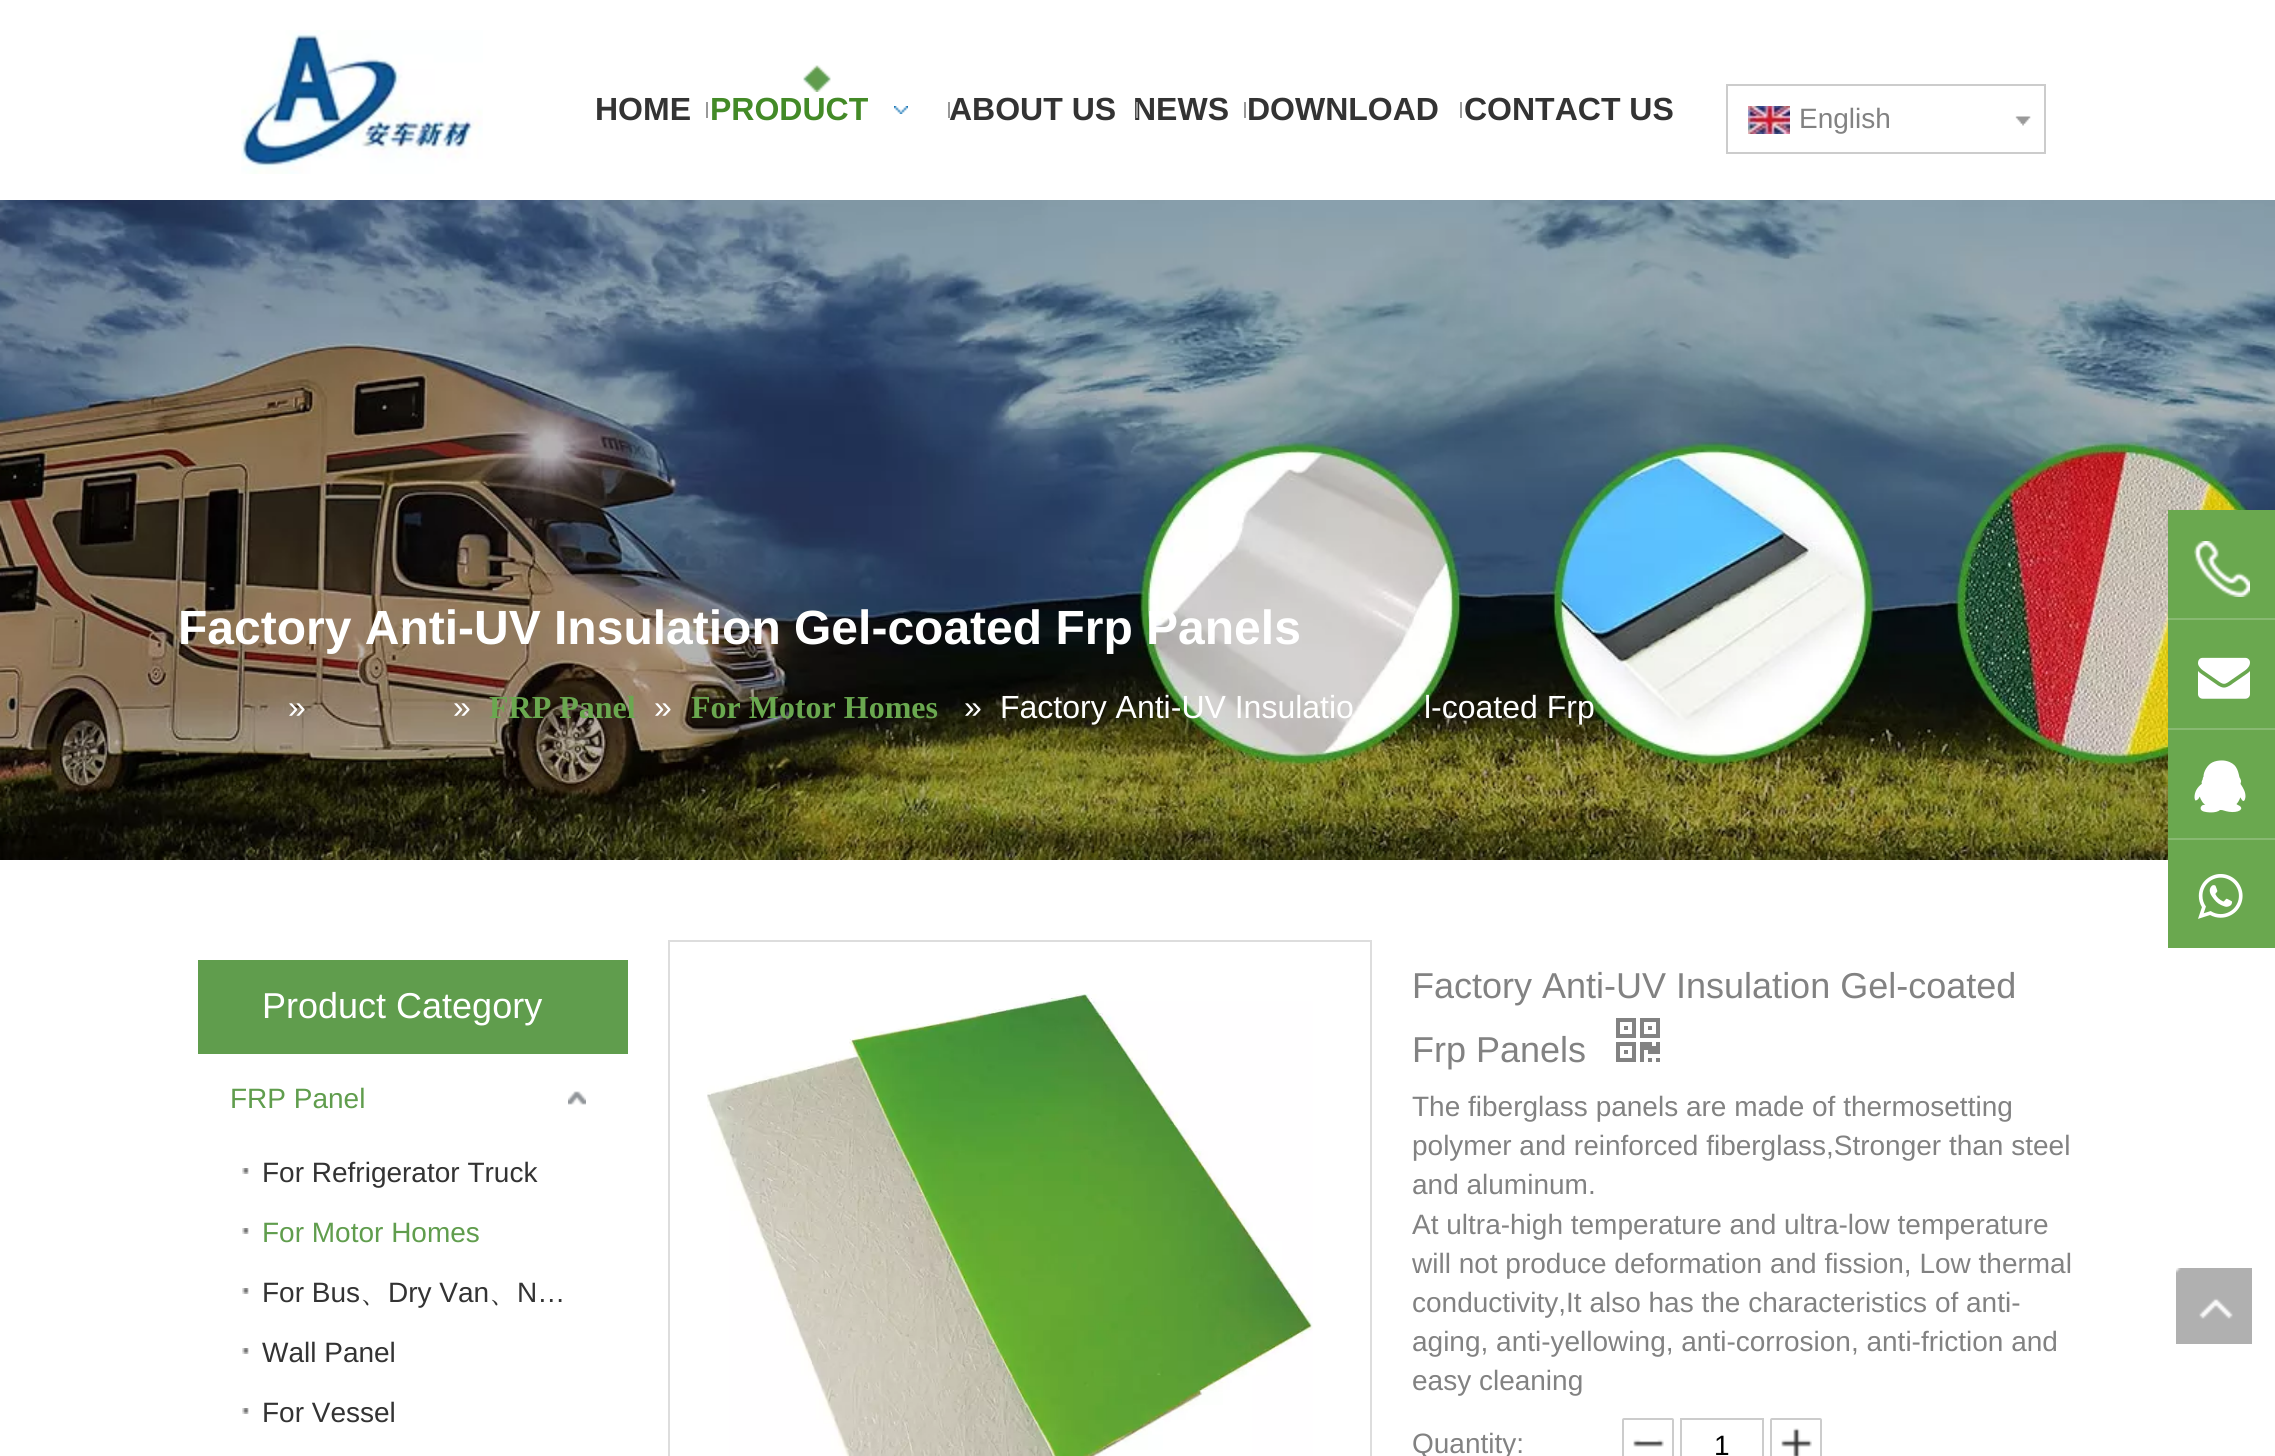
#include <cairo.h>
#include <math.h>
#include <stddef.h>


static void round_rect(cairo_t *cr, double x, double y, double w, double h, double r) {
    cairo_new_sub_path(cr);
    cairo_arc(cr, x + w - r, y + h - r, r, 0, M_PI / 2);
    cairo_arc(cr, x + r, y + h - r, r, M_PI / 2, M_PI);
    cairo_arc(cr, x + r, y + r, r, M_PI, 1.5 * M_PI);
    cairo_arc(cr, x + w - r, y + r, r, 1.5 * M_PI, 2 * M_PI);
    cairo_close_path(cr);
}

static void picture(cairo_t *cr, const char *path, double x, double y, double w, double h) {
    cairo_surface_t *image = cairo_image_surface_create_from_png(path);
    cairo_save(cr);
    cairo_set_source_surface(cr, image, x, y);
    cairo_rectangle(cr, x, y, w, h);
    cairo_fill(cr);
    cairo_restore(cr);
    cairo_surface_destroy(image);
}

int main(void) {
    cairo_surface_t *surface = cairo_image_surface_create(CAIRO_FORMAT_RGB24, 2275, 1456);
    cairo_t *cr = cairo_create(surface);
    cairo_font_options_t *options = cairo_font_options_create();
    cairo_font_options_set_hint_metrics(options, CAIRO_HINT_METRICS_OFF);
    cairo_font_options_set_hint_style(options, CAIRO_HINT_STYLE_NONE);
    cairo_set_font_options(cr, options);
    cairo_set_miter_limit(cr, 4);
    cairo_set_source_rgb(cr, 1, 1, 1);
    cairo_paint(cr);
    picture(cr, "img1.png", 241, 30, 242, 144);
    cairo_select_font_face(cr, "Liberation Sans", CAIRO_FONT_SLANT_NORMAL, CAIRO_FONT_WEIGHT_BOLD);
    cairo_set_font_size(cr, 32);
    cairo_set_source_rgb(cr, 0.2, 0.2, 0.2);
    cairo_move_to(cr, 595, 120);
    cairo_show_text(cr, "HOME");
    cairo_set_source_rgb(cr, 0.6, 0.6, 0.6);
    cairo_rectangle(cr, 706, 102, 2, 16);
    cairo_fill(cr);
    picture(cr, "img2.png", 803, 65, 28, 27);
    cairo_set_source_rgb(cr, 0.263, 0.541, 0.153);
    cairo_move_to(cr, 710, 120);
    cairo_show_text(cr, "PRODUCT");
    picture(cr, "img3.png", 894, 106, 14, 8);
    cairo_set_source_rgb(cr, 0.6, 0.6, 0.6);
    cairo_rectangle(cr, 948, 102, 2, 16);
    cairo_fill(cr);
    cairo_set_source_rgb(cr, 0.2, 0.2, 0.2);
    cairo_move_to(cr, 949, 120);
    cairo_show_text(cr, "ABOUT US");
    cairo_move_to(cr, 1133, 120);
    cairo_show_text(cr, "NEWS");
    cairo_set_source_rgb(cr, 0.6, 0.6, 0.6);
    cairo_rectangle(cr, 1136, 102, 2, 16);
    cairo_fill(cr);
    cairo_rectangle(cr, 1244, 102, 2, 16);
    cairo_fill(cr);
    cairo_set_source_rgb(cr, 0.2, 0.2, 0.2);
    cairo_move_to(cr, 1247, 120);
    cairo_show_text(cr, "DOWNLOAD");
    cairo_set_source_rgb(cr, 0.6, 0.6, 0.6);
    cairo_rectangle(cr, 1460, 102, 2, 16);
    cairo_fill(cr);
    cairo_set_source_rgb(cr, 0.2, 0.2, 0.2);
    cairo_move_to(cr, 1464, 120);
    cairo_show_text(cr, "CONTACT US");
    cairo_rectangle(cr, 1727, 85, 318, 68);
    cairo_set_source_rgb(cr, 0.8, 0.8, 0.8);
    cairo_stroke(cr);
    picture(cr, "img4.png", 1748, 106, 42, 28);
    cairo_select_font_face(cr, "Liberation Sans", CAIRO_FONT_SLANT_NORMAL, CAIRO_FONT_WEIGHT_NORMAL);
    cairo_set_font_size(cr, 28);
    cairo_set_source_rgb(cr, 0.51, 0.51, 0.51);
    cairo_move_to(cr, 1799, 128);
    cairo_show_text(cr, "English");
    picture(cr, "img5.png", 2015, 116, 16, 10);
    picture(cr, "img6.png", 0, 200, 2275, 660);
    cairo_select_font_face(cr, "Liberation Sans", CAIRO_FONT_SLANT_NORMAL, CAIRO_FONT_WEIGHT_BOLD);
    cairo_set_font_size(cr, 48);
    cairo_set_source_rgb(cr, 1, 1, 1);
    cairo_move_to(cr, 178, 644);
    cairo_show_text(cr, "Factory Anti-UV Insulation Gel-coated Frp Panels");
    cairo_select_font_face(cr, "Liberation Sans", CAIRO_FONT_SLANT_NORMAL, CAIRO_FONT_WEIGHT_NORMAL);
    cairo_set_font_size(cr, 32);
    cairo_move_to(cr, 288, 718);
    cairo_show_text(cr, "»");
    cairo_move_to(cr, 453, 718);
    cairo_show_text(cr, "»");
    cairo_select_font_face(cr, "Liberation Serif", CAIRO_FONT_SLANT_NORMAL, CAIRO_FONT_WEIGHT_BOLD);
    cairo_set_source_rgb(cr, 0.416, 0.659, 0.31);
    cairo_move_to(cr, 489, 718);
    cairo_show_text(cr, "FRP Panel");
    cairo_select_font_face(cr, "Liberation Sans", CAIRO_FONT_SLANT_NORMAL, CAIRO_FONT_WEIGHT_NORMAL);
    cairo_set_source_rgb(cr, 1, 1, 1);
    cairo_move_to(cr, 654, 718);
    cairo_show_text(cr, "»");
    cairo_select_font_face(cr, "Liberation Serif", CAIRO_FONT_SLANT_NORMAL, CAIRO_FONT_WEIGHT_BOLD);
    cairo_set_source_rgb(cr, 0.416, 0.659, 0.31);
    cairo_move_to(cr, 691, 718);
    cairo_show_text(cr, "For Motor Homes");
    cairo_select_font_face(cr, "Liberation Sans", CAIRO_FONT_SLANT_NORMAL, CAIRO_FONT_WEIGHT_NORMAL);
    cairo_set_source_rgb(cr, 1, 1, 1);
    cairo_move_to(cr, 964, 718);
    cairo_show_text(cr, "»");
    cairo_move_to(cr, 1000, 718);
    cairo_show_text(cr, "Factory Anti-UV Insulatio");
    cairo_move_to(cr, 1424, 718);
    cairo_show_text(cr, "l-coated Frp");
    cairo_set_source_rgb(cr, 0.376, 0.616, 0.302);
    cairo_rectangle(cr, 198, 960, 430, 94);
    cairo_fill(cr);
    cairo_set_font_size(cr, 36);
    cairo_set_source_rgb(cr, 1, 1, 1);
    cairo_move_to(cr, 262, 1018);
    cairo_show_text(cr, "Product Category");
    cairo_set_font_size(cr, 28);
    cairo_set_source_rgb(cr, 0.376, 0.616, 0.302);
    cairo_move_to(cr, 230, 1108);
    cairo_show_text(cr, "FRP Panel");
    picture(cr, "img7.png", 568, 1091, 18, 14);
    picture(cr, "img8.png", 242, 1168, 7, 6);
    cairo_set_source_rgb(cr, 0.2, 0.2, 0.2);
    cairo_move_to(cr, 262, 1182);
    cairo_show_text(cr, "For Refrigerator Truck");
    picture(cr, "img8.png", 242, 1228, 7, 6);
    cairo_set_source_rgb(cr, 0.376, 0.616, 0.302);
    cairo_move_to(cr, 262, 1242);
    cairo_show_text(cr, "For Motor Homes");
    picture(cr, "img8.png", 242, 1288, 7, 6);
    cairo_set_source_rgb(cr, 0.2, 0.2, 0.2);
    cairo_move_to(cr, 262, 1302);
    cairo_show_text(cr, "For Bus");
    cairo_move_to(cr, 388, 1302);
    cairo_show_text(cr, "Dry Van");
    cairo_move_to(cr, 517, 1302);
    cairo_show_text(cr, "N…");
    cairo_select_font_face(cr, "WenQuanYi Zen Hei Medium", CAIRO_FONT_SLANT_NORMAL, CAIRO_FONT_WEIGHT_NORMAL);
    cairo_move_to(cr, 360, 1302);
    cairo_show_text(cr, "、");
    cairo_move_to(cr, 489, 1302);
    cairo_show_text(cr, "、");
    picture(cr, "img8.png", 242, 1348, 7, 6);
    cairo_select_font_face(cr, "Liberation Sans", CAIRO_FONT_SLANT_NORMAL, CAIRO_FONT_WEIGHT_NORMAL);
    cairo_move_to(cr, 262, 1362);
    cairo_show_text(cr, "Wall Panel");
    picture(cr, "img8.png", 242, 1408, 7, 6);
    cairo_move_to(cr, 262, 1422);
    cairo_show_text(cr, "For Vessel");
    cairo_rectangle(cr, 669, 941, 702, 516);
    cairo_set_source_rgb(cr, 0.867, 0.867, 0.867);
    cairo_stroke(cr);
    picture(cr, "img9.png", 707, 994, 606, 462);
    cairo_set_font_size(cr, 36);
    cairo_set_source_rgb(cr, 0.51, 0.51, 0.51);
    cairo_move_to(cr, 1412, 998);
    cairo_show_text(cr, "Factory Anti-UV Insulation Gel-coated");
    cairo_move_to(cr, 1412, 1062);
    cairo_show_text(cr, "Frp Panels");
    picture(cr, "img10.png", 1616, 1018, 44, 44);
    cairo_set_font_size(cr, 28);
    cairo_move_to(cr, 1412, 1116);
    cairo_show_text(cr, "The fiberglass panels are made of thermosetting");
    cairo_move_to(cr, 1412, 1155);
    cairo_show_text(cr, "polymer and reinforced fiberglass,Stronger than steel");
    cairo_move_to(cr, 1412, 1194);
    cairo_show_text(cr, "and aluminum.");
    cairo_move_to(cr, 1412, 1234);
    cairo_show_text(cr, "At ultra-high temperature and ultra-low temperature");
    cairo_move_to(cr, 1412, 1273);
    cairo_show_text(cr, "will not produce deformation and fission, Low thermal");
    cairo_move_to(cr, 1412, 1312);
    cairo_show_text(cr, "conductivity,It also has the characteristics of anti-");
    cairo_move_to(cr, 1412, 1351);
    cairo_show_text(cr, "aging, anti-yellowing, anti-corrosion, anti-friction and");
    cairo_move_to(cr, 1412, 1390);
    cairo_show_text(cr, "easy cleaning");
    cairo_move_to(cr, 1412, 1453);
    cairo_show_text(cr, "Quantity:");
    picture(cr, "img11.png", 1633, 1439, 31, 8);
    round_rect(cr, 1623, 1419, 50, 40, 1);
    cairo_set_source_rgb(cr, 0.8, 0.8, 0.8);
    cairo_stroke(cr);
    cairo_rectangle(cr, 1681, 1419, 82, 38);
    cairo_stroke(cr);
    cairo_set_source_rgb(cr, 0, 0, 0);
    cairo_move_to(cr, 1714, 1455);
    cairo_show_text(cr, "1");
    picture(cr, "img12.png", 1781, 1428, 31, 28);
    round_rect(cr, 1771, 1419, 50, 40, 1);
    cairo_set_source_rgb(cr, 0.8, 0.8, 0.8);
    cairo_stroke(cr);
    cairo_set_source_rgb(cr, 0.416, 0.659, 0.31);
    cairo_rectangle(cr, 2168, 510, 107, 438);
    cairo_fill(cr);
    cairo_set_source_rgb(cr, 0.533, 0.725, 0.447);
    cairo_rectangle(cr, 2168, 618, 107, 2);
    cairo_fill(cr);
    picture(cr, "img13.png", 2194, 541, 56, 56);
    cairo_rectangle(cr, 2168, 728, 107, 2);
    cairo_fill(cr);
    picture(cr, "img14.png", 2198, 657, 52, 42);
    cairo_rectangle(cr, 2168, 838, 107, 2);
    cairo_fill(cr);
    picture(cr, "img15.png", 2194, 760, 52, 53);
    picture(cr, "img16.png", 2198, 874, 45, 45);
    picture(cr, "img17.png", 2176, 1268, 76, 76);
    cairo_surface_write_to_png(surface, "page.png");
    cairo_font_options_destroy(options);
    cairo_destroy(cr);
    cairo_surface_destroy(surface);
    return 0;
}
